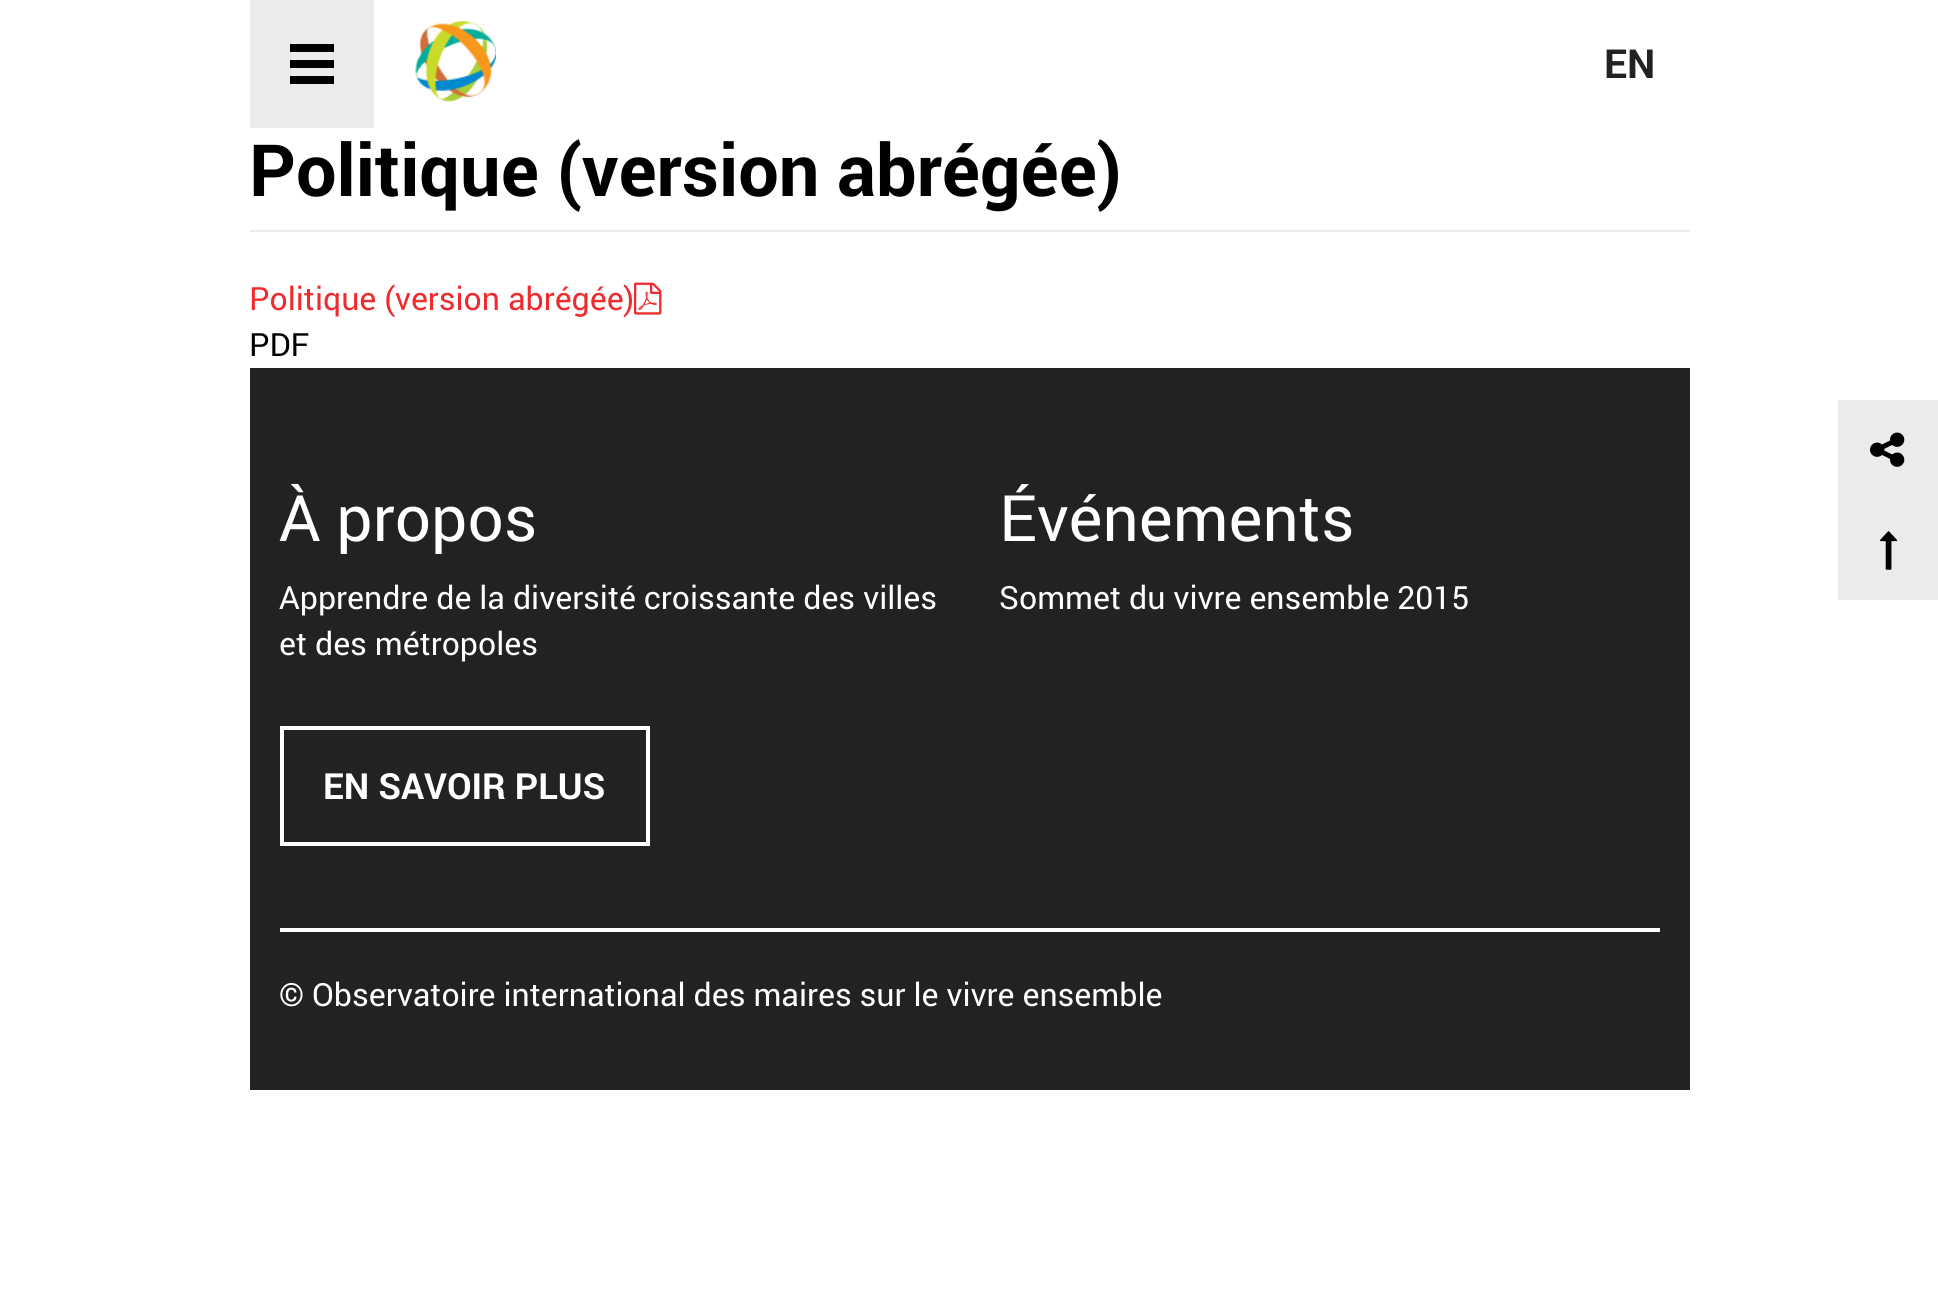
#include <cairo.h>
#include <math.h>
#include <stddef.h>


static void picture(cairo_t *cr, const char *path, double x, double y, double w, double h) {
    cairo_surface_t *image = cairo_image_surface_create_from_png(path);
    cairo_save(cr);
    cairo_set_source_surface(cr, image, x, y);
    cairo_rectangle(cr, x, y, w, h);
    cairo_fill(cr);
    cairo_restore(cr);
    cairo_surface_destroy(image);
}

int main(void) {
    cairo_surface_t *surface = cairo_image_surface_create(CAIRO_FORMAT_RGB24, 1938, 1296);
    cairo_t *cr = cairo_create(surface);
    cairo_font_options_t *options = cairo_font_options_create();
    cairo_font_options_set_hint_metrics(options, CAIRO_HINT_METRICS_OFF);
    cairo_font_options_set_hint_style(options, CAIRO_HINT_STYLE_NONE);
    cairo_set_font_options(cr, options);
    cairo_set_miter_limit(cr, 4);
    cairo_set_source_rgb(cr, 1, 1, 1);
    cairo_paint(cr);
    cairo_set_source_rgb(cr, 0.918, 0.918, 0.918);
    cairo_rectangle(cr, 250, 0, 124, 128);
    cairo_fill(cr);
    cairo_set_source_rgb(cr, 0, 0, 0);
    cairo_rectangle(cr, 290, 44, 44, 8);
    cairo_fill(cr);
    cairo_rectangle(cr, 290, 60, 44, 8);
    cairo_fill(cr);
    cairo_rectangle(cr, 290, 76, 44, 8);
    cairo_fill(cr);
    picture(cr, "img1.png", 415, 21, 81, 81);
    cairo_select_font_face(cr, "roboto", CAIRO_FONT_SLANT_NORMAL, CAIRO_FONT_WEIGHT_BOLD);
    cairo_set_font_size(cr, 40);
    cairo_set_source_rgb(cr, 0.133, 0.133, 0.133);
    cairo_move_to(cr, 1604, 78);
    cairo_show_text(cr, "EN");
    cairo_set_source_rgb(cr, 0.918, 0.918, 0.918);
    cairo_rectangle(cr, 250, 230, 1440, 2);
    cairo_fill(cr);
    cairo_set_font_size(cr, 72);
    cairo_set_source_rgb(cr, 0, 0, 0);
    cairo_move_to(cr, 249, 196);
    cairo_show_text(cr, "Politique (version abrégée)");
    cairo_select_font_face(cr, "roboto", CAIRO_FONT_SLANT_NORMAL, CAIRO_FONT_WEIGHT_NORMAL);
    cairo_set_font_size(cr, 32);
    cairo_set_source_rgb(cr, 0.937, 0.169, 0.176);
    cairo_move_to(cr, 249, 310);
    cairo_show_text(cr, "Politique (version abrégée)");
    picture(cr, "img2.png", 634, 282, 28, 33);
    cairo_set_source_rgb(cr, 0, 0, 0);
    cairo_move_to(cr, 249, 356);
    cairo_show_text(cr, "PDF");
    cairo_set_source_rgb(cr, 0.918, 0.918, 0.918);
    cairo_rectangle(cr, 1838, 400, 100, 200);
    cairo_fill(cr);
    picture(cr, "img3.png", 1870, 432, 35, 35);
    picture(cr, "img4.png", 1880, 531, 18, 39);
    cairo_set_source_rgb(cr, 0.133, 0.133, 0.133);
    cairo_rectangle(cr, 250, 368, 1440, 722);
    cairo_fill(cr);
    cairo_set_font_size(cr, 64);
    cairo_set_source_rgb(cr, 1, 1, 1);
    cairo_move_to(cr, 279, 541);
    cairo_show_text(cr, "À propos");
    cairo_set_font_size(cr, 32);
    cairo_move_to(cr, 279, 609);
    cairo_show_text(cr, "Apprendre de la diversité croissante des villes");
    cairo_move_to(cr, 279, 655);
    cairo_show_text(cr, "et des métropoles");
    cairo_rectangle(cr, 282, 728, 366, 116);
    cairo_set_line_width(cr, 4);
    cairo_stroke(cr);
    cairo_select_font_face(cr, "roboto", CAIRO_FONT_SLANT_NORMAL, CAIRO_FONT_WEIGHT_BOLD);
    cairo_set_font_size(cr, 36);
    cairo_move_to(cr, 323, 799);
    cairo_show_text(cr, "EN SAVOIR PLUS");
    cairo_select_font_face(cr, "roboto", CAIRO_FONT_SLANT_NORMAL, CAIRO_FONT_WEIGHT_NORMAL);
    cairo_set_font_size(cr, 64);
    cairo_move_to(cr, 999, 541);
    cairo_show_text(cr, "Événements");
    cairo_set_font_size(cr, 32);
    cairo_move_to(cr, 999, 609);
    cairo_show_text(cr, "Sommet du vivre ensemble 2015");
    cairo_rectangle(cr, 280, 928, 1380, 4);
    cairo_fill(cr);
    cairo_move_to(cr, 279, 1006);
    cairo_show_text(cr, "© Observatoire international des maires sur le vivre ensemble");
    cairo_surface_write_to_png(surface, "page.png");
    cairo_font_options_destroy(options);
    cairo_destroy(cr);
    cairo_surface_destroy(surface);
    return 0;
}
